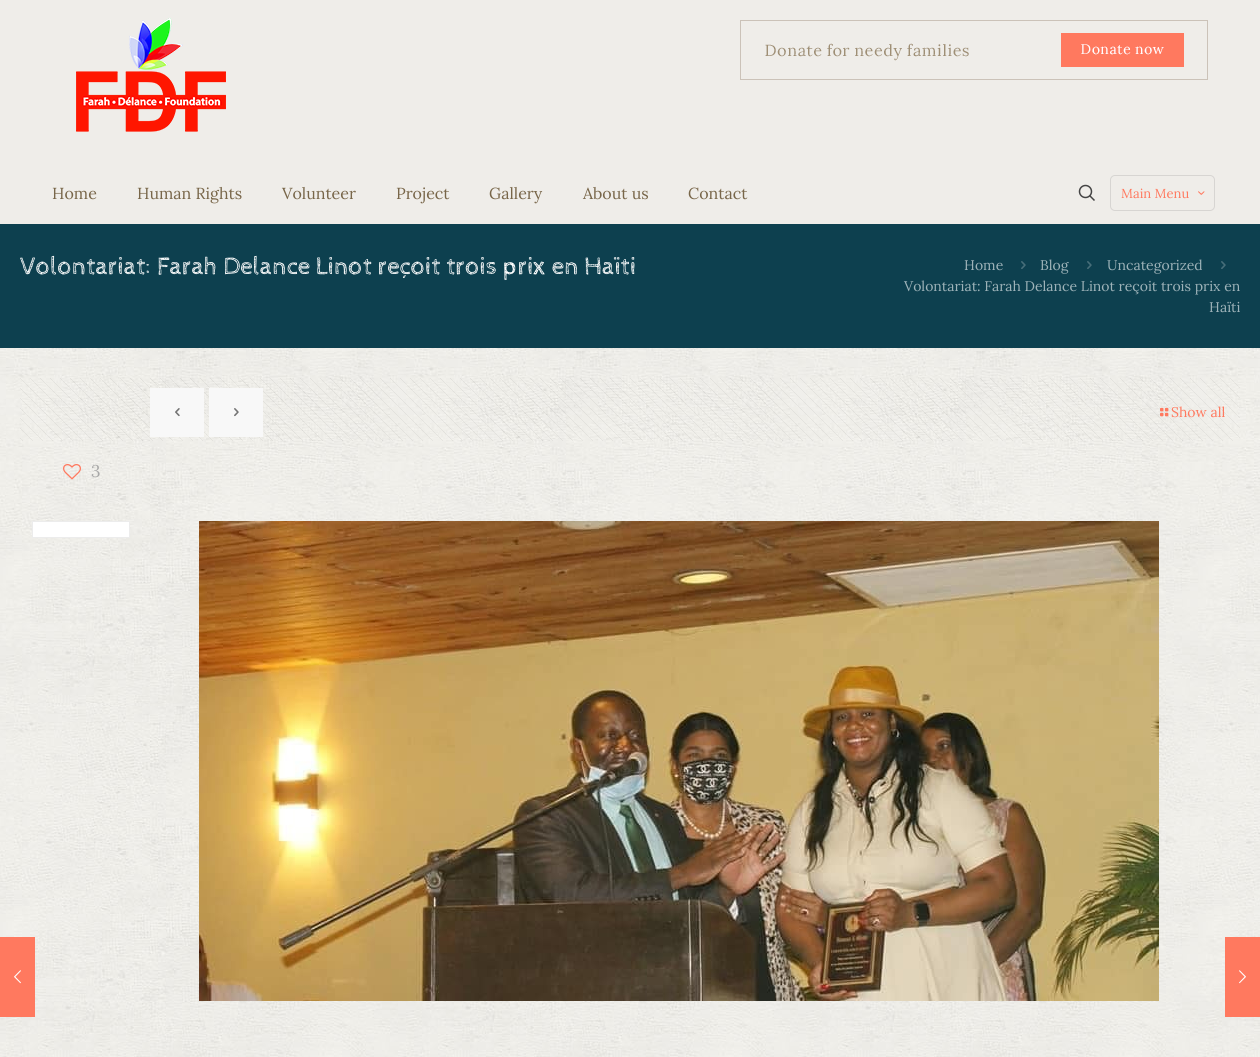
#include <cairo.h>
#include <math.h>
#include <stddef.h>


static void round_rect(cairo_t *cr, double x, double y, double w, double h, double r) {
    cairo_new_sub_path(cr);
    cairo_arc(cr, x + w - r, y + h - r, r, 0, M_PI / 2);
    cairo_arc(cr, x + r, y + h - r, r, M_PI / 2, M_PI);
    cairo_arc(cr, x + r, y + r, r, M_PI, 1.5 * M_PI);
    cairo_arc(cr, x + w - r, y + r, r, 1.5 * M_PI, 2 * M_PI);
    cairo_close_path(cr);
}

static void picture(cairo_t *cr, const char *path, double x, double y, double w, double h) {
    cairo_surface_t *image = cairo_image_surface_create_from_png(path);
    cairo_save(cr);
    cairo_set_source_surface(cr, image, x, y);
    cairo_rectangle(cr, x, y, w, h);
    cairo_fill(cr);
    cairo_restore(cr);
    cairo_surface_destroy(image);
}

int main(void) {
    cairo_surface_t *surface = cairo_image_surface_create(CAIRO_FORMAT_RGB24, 1260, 1057);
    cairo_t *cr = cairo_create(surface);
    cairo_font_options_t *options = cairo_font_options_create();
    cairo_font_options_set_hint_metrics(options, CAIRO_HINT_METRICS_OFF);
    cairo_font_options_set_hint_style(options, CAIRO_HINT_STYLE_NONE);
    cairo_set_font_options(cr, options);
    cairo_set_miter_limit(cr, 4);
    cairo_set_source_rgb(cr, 1, 1, 1);
    cairo_paint(cr);
    picture(cr, "img1.png", 0, 348, 1260, 709);
    cairo_set_source_rgb(cr, 0.937, 0.929, 0.914);
    cairo_rectangle(cr, 0, 0, 1260, 224);
    cairo_fill(cr);
    picture(cr, "img2.png", 76, 18, 150, 114);
    picture(cr, "img3.png", 740, 20, 468, 60);
    cairo_select_font_face(cr, "Lora", CAIRO_FONT_SLANT_NORMAL, CAIRO_FONT_WEIGHT_NORMAL);
    cairo_set_font_size(cr, 16);
    cairo_set_source_rgb(cr, 0.471, 0.4, 0.286);
    cairo_move_to(cr, 52, 199);
    cairo_show_text(cr, "Home");
    cairo_move_to(cr, 137, 199);
    cairo_show_text(cr, "Human Rights");
    cairo_move_to(cr, 282, 199);
    cairo_show_text(cr, "Volunteer");
    cairo_move_to(cr, 396, 199);
    cairo_show_text(cr, "Project");
    cairo_move_to(cr, 489, 199);
    cairo_show_text(cr, "Gallery");
    cairo_move_to(cr, 583, 199);
    cairo_show_text(cr, "About us");
    cairo_move_to(cr, 688, 199);
    cairo_show_text(cr, "Contact");
    cairo_new_path(cr);
    cairo_arc(cr, 1085.5, 191.5, 6, 0, 2 * M_PI);
    cairo_set_source_rgb(cr, 0.267, 0.267, 0.267);
    cairo_set_line_width(cr, 1.5);
    cairo_stroke(cr);
    cairo_new_path(cr);
    cairo_move_to(cr, 1089.5, 195.5);
    cairo_line_to(cr, 1094.5, 200.5);
    cairo_stroke(cr);
    round_rect(cr, 1110.5, 175.5, 104, 35, 4.5);
    cairo_set_source_rgb(cr, 0.843, 0.835, 0.824);
    cairo_set_line_width(cr, 1);
    cairo_stroke(cr);
    cairo_set_font_size(cr, 13);
    cairo_set_source_rgb(cr, 1, 0.475, 0.373);
    cairo_move_to(cr, 1121, 198);
    cairo_show_text(cr, "Main Menu");
    picture(cr, "img4.png", 1198, 191, 7, 4);
    cairo_set_source_rgb(cr, 0.051, 0.251, 0.31);
    cairo_rectangle(cr, 0, 224, 1260, 124);
    cairo_fill(cr);
    cairo_select_font_face(cr, "Cabin Sketch", CAIRO_FONT_SLANT_NORMAL, CAIRO_FONT_WEIGHT_NORMAL);
    cairo_set_font_size(cr, 25);
    cairo_set_source_rgb(cr, 1, 1, 1);
    cairo_move_to(cr, 20, 274);
    cairo_show_text(cr, "Volontariat: Farah Delance Linot reçoit trois prix en Haïti");
    cairo_select_font_face(cr, "Lora", CAIRO_FONT_SLANT_NORMAL, CAIRO_FONT_WEIGHT_NORMAL);
    cairo_set_font_size(cr, 14);
    cairo_set_source_rgb(cr, 0.62, 0.702, 0.725);
    cairo_move_to(cr, 964, 270);
    cairo_show_text(cr, "Home");
    picture(cr, "img5.png", 1021, 261, 5, 8);
    cairo_move_to(cr, 1040, 270);
    cairo_show_text(cr, "Blog");
    picture(cr, "img5.png", 1087, 261, 5, 8);
    cairo_move_to(cr, 1107, 270);
    cairo_show_text(cr, "Uncategorized");
    picture(cr, "img5.png", 1221, 261, 5, 8);
    cairo_move_to(cr, 904, 291);
    cairo_show_text(cr, "Volontariat: Farah Delance Linot reçoit trois prix en");
    cairo_move_to(cr, 1209, 312);
    cairo_show_text(cr, "Haïti");
    picture(cr, "img6.png", 20, 378, 1220, 63);
    cairo_set_source_rgb(cr, 0.969, 0.969, 0.969);
    cairo_rectangle(cr, 150, 388, 54, 49);
    cairo_fill(cr);
    picture(cr, "img7.png", 175, 408, 5, 9);
    cairo_rectangle(cr, 209, 388, 54, 49);
    cairo_fill(cr);
    picture(cr, "img8.png", 234, 408, 5, 9);
    picture(cr, "img9.png", 1160, 407, 9, 10);
    cairo_set_source_rgb(cr, 1, 0.475, 0.373);
    cairo_move_to(cr, 1171, 417);
    cairo_show_text(cr, "Show all");
    picture(cr, "img10.png", 63, 464, 18, 16);
    cairo_set_font_size(cr, 17);
    cairo_set_source_rgb(cr, 0.659, 0.659, 0.659);
    cairo_move_to(cr, 91, 477);
    cairo_show_text(cr, "3");
    cairo_set_source_rgb(cr, 1, 1, 1);
    cairo_rectangle(cr, 32.5, 521.5, 97, 16);
    cairo_fill_preserve(cr);
    cairo_set_source_rgb(cr, 0.922, 0.922, 0.922);
    cairo_stroke(cr);
    picture(cr, "img11.png", 199, 521, 960, 480);
    cairo_set_source_rgb(cr, 1, 0.475, 0.373);
    cairo_rectangle(cr, 0, 937, 35, 80);
    cairo_fill(cr);
    picture(cr, "img12.png", 14, 970, 7, 14);
    cairo_rectangle(cr, 1225, 937, 35, 80);
    cairo_fill(cr);
    picture(cr, "img13.png", 1239, 970, 7, 14);
    cairo_surface_write_to_png(surface, "page.png");
    cairo_font_options_destroy(options);
    cairo_destroy(cr);
    cairo_surface_destroy(surface);
    return 0;
}
